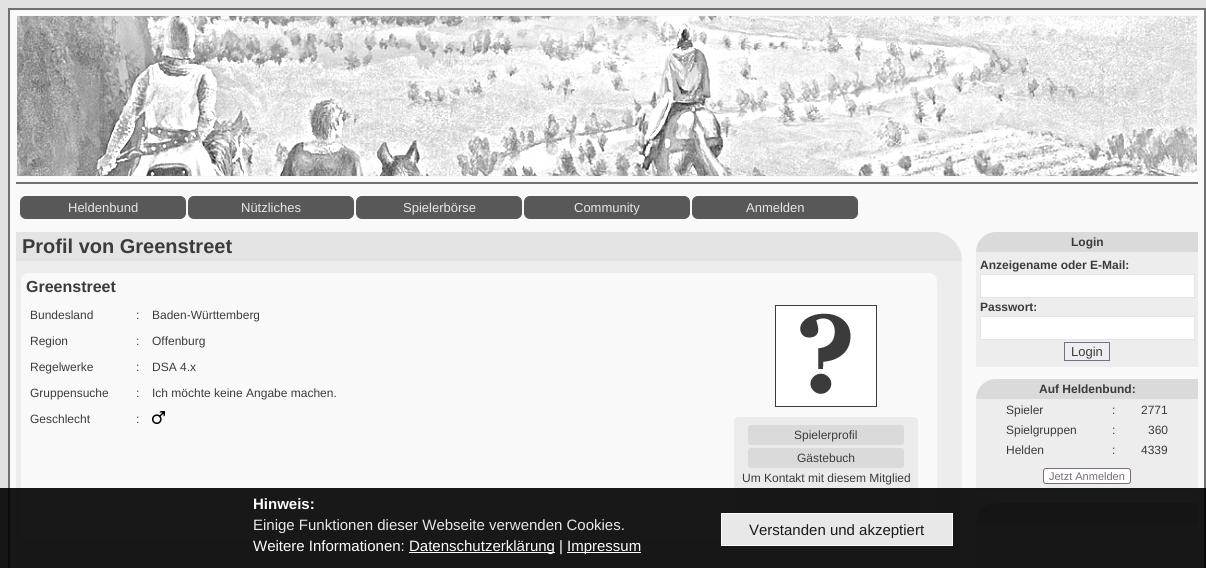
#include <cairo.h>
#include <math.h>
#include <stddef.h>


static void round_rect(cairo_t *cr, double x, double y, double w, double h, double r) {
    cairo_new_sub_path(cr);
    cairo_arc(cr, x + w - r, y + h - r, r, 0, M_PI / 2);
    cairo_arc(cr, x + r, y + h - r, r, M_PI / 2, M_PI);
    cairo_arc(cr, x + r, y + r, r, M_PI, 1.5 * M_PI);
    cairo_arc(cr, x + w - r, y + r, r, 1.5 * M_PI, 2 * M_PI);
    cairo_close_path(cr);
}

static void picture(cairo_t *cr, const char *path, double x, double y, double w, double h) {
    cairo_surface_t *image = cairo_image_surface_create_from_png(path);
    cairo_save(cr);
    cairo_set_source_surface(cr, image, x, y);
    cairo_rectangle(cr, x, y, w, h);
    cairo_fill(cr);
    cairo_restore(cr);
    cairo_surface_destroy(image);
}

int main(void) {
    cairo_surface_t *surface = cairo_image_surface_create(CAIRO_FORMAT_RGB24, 1206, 568);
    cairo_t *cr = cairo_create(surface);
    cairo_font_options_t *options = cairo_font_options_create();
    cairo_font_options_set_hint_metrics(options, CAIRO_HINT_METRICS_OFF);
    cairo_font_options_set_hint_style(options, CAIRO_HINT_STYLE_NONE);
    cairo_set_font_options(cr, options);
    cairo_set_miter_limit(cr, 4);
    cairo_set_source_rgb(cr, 0.886, 0.886, 0.886);
    cairo_paint(cr);
    cairo_set_source_rgb(cr, 0.973, 0.973, 0.973);
    cairo_rectangle(cr, 9, 9, 1196, 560);
    cairo_fill_preserve(cr);
    cairo_set_source_rgb(cr, 0.443, 0.443, 0.443);
    cairo_stroke(cr);
    cairo_rectangle(cr, 16, 182, 1182, 2);
    cairo_fill(cr);
    picture(cr, "img1.png", 17, 16, 1180, 160);
    cairo_set_source_rgb(cr, 0.345, 0.345, 0.345);
    round_rect(cr, 20.5, 196.5, 165, 22, 5.5);
    cairo_fill_preserve(cr);
    cairo_set_line_width(cr, 1);
    cairo_stroke(cr);
    cairo_select_font_face(cr, "Liberation Sans", CAIRO_FONT_SLANT_NORMAL, CAIRO_FONT_WEIGHT_NORMAL);
    cairo_set_font_size(cr, 13);
    cairo_set_source_rgb(cr, 0.91, 0.91, 0.91);
    cairo_move_to(cr, 68, 212);
    cairo_show_text(cr, "Heldenbund");
    cairo_set_source_rgb(cr, 0.345, 0.345, 0.345);
    round_rect(cr, 188.5, 196.5, 165, 22, 5.5);
    cairo_fill_preserve(cr);
    cairo_stroke(cr);
    cairo_set_source_rgb(cr, 0.91, 0.91, 0.91);
    cairo_move_to(cr, 241, 212);
    cairo_show_text(cr, "Nützliches");
    cairo_set_source_rgb(cr, 0.345, 0.345, 0.345);
    round_rect(cr, 356.5, 196.5, 165, 22, 5.5);
    cairo_fill_preserve(cr);
    cairo_stroke(cr);
    cairo_set_source_rgb(cr, 0.91, 0.91, 0.91);
    cairo_move_to(cr, 403, 212);
    cairo_show_text(cr, "Spielerbörse");
    cairo_set_source_rgb(cr, 0.345, 0.345, 0.345);
    round_rect(cr, 524.5, 196.5, 165, 22, 5.5);
    cairo_fill_preserve(cr);
    cairo_stroke(cr);
    cairo_set_source_rgb(cr, 0.91, 0.91, 0.91);
    cairo_move_to(cr, 574, 212);
    cairo_show_text(cr, "Community");
    cairo_set_source_rgb(cr, 0.345, 0.345, 0.345);
    round_rect(cr, 692.5, 196.5, 165, 22, 5.5);
    cairo_fill_preserve(cr);
    cairo_stroke(cr);
    cairo_set_source_rgb(cr, 0.91, 0.91, 0.91);
    cairo_move_to(cr, 746, 212);
    cairo_show_text(cr, "Anmelden");
    cairo_set_source_rgb(cr, 0.929, 0.929, 0.929);
    cairo_new_path(cr);
    cairo_move_to(cr, 16, 232);
    cairo_line_to(cr, 932, 232);
    cairo_curve_to(cr, 948.5, 232, 962, 245.5, 962, 262);
    cairo_line_to(cr, 962, 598);
    cairo_line_to(cr, 16, 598);
    cairo_close_path(cr);
    cairo_fill(cr);
    cairo_set_source_rgb(cr, 0.894, 0.894, 0.894);
    cairo_new_path(cr);
    cairo_move_to(cr, 16, 232);
    cairo_line_to(cr, 933, 232);
    cairo_curve_to(cr, 949, 232, 962, 245, 962, 261);
    cairo_line_to(cr, 16, 261);
    cairo_close_path(cr);
    cairo_fill(cr);
    cairo_select_font_face(cr, "Liberation Sans", CAIRO_FONT_SLANT_NORMAL, CAIRO_FONT_WEIGHT_BOLD);
    cairo_set_font_size(cr, 20);
    cairo_set_source_rgb(cr, 0.231, 0.231, 0.231);
    cairo_move_to(cr, 22, 253);
    cairo_show_text(cr, "Profil von Greenstreet");
    cairo_set_source_rgb(cr, 0.973, 0.973, 0.973);
    round_rect(cr, 21, 273, 916, 267, 8);
    cairo_fill(cr);
    cairo_set_font_size(cr, 16);
    cairo_set_source_rgb(cr, 0.231, 0.231, 0.231);
    cairo_move_to(cr, 26, 292);
    cairo_show_text(cr, "Greenstreet");
    cairo_select_font_face(cr, "Liberation Sans", CAIRO_FONT_SLANT_NORMAL, CAIRO_FONT_WEIGHT_NORMAL);
    cairo_set_font_size(cr, 12);
    cairo_move_to(cr, 30, 319);
    cairo_show_text(cr, "Bundesland");
    cairo_move_to(cr, 136, 319);
    cairo_show_text(cr, ":");
    cairo_move_to(cr, 152, 319);
    cairo_show_text(cr, "Baden-Württemberg");
    cairo_move_to(cr, 30, 345);
    cairo_show_text(cr, "Region");
    cairo_move_to(cr, 136, 345);
    cairo_show_text(cr, ":");
    cairo_move_to(cr, 152, 345);
    cairo_show_text(cr, "Offenburg");
    cairo_move_to(cr, 30, 371);
    cairo_show_text(cr, "Regelwerke");
    cairo_move_to(cr, 136, 371);
    cairo_show_text(cr, ":");
    cairo_move_to(cr, 152, 371);
    cairo_show_text(cr, "DSA 4.x");
    cairo_move_to(cr, 30, 397);
    cairo_show_text(cr, "Gruppensuche");
    cairo_move_to(cr, 136, 397);
    cairo_show_text(cr, ":");
    cairo_move_to(cr, 152, 397);
    cairo_show_text(cr, "Ich möchte keine Angabe machen.");
    cairo_move_to(cr, 30, 423);
    cairo_show_text(cr, "Geschlecht");
    cairo_move_to(cr, 136, 423);
    cairo_show_text(cr, ":");
    picture(cr, "img2.png", 152, 411, 13, 13);
    picture(cr, "img3.png", 775, 305, 102, 102);
    cairo_set_source_rgb(cr, 0.918, 0.918, 0.918);
    round_rect(cr, 734, 417, 184, 101, 4);
    cairo_fill(cr);
    cairo_set_source_rgb(cr, 0.855, 0.855, 0.855);
    round_rect(cr, 748, 425, 156, 20, 3);
    cairo_fill(cr);
    cairo_set_source_rgb(cr, 0.231, 0.231, 0.231);
    cairo_move_to(cr, 794, 439);
    cairo_show_text(cr, "Spielerprofil");
    cairo_set_source_rgb(cr, 0.855, 0.855, 0.855);
    round_rect(cr, 748, 448, 156, 20, 3);
    cairo_fill(cr);
    cairo_set_source_rgb(cr, 0.231, 0.231, 0.231);
    cairo_move_to(cr, 797, 462);
    cairo_show_text(cr, "Gästebuch");
    cairo_move_to(cr, 742, 482);
    cairo_show_text(cr, "Um Kontakt mit diesem Mitglied");
    cairo_set_source_rgb(cr, 0.855, 0.855, 0.855);
    cairo_new_path(cr);
    cairo_move_to(cr, 996, 232);
    cairo_line_to(cr, 1198, 232);
    cairo_line_to(cr, 1198, 252);
    cairo_line_to(cr, 976, 252);
    cairo_curve_to(cr, 976, 241, 985, 232, 996, 232);
    cairo_close_path(cr);
    cairo_fill(cr);
    cairo_select_font_face(cr, "Liberation Sans", CAIRO_FONT_SLANT_NORMAL, CAIRO_FONT_WEIGHT_BOLD);
    cairo_set_source_rgb(cr, 0.231, 0.231, 0.231);
    cairo_move_to(cr, 1071, 246);
    cairo_show_text(cr, "Login");
    cairo_set_source_rgb(cr, 0.929, 0.929, 0.929);
    cairo_rectangle(cr, 976, 252, 222, 115);
    cairo_fill(cr);
    cairo_set_source_rgb(cr, 0.231, 0.231, 0.231);
    cairo_move_to(cr, 980, 269);
    cairo_show_text(cr, "Anzeigename oder E-Mail:");
    cairo_set_source_rgb(cr, 1, 1, 1);
    cairo_rectangle(cr, 980.5, 274.5, 214, 23);
    cairo_fill_preserve(cr);
    cairo_set_source_rgb(cr, 0.894, 0.894, 0.894);
    cairo_stroke(cr);
    cairo_set_source_rgb(cr, 0.231, 0.231, 0.231);
    cairo_move_to(cr, 980, 311);
    cairo_show_text(cr, "Passwort:");
    cairo_set_source_rgb(cr, 1, 1, 1);
    cairo_rectangle(cr, 980.5, 316.5, 214, 23);
    cairo_fill_preserve(cr);
    cairo_set_source_rgb(cr, 0.894, 0.894, 0.894);
    cairo_stroke(cr);
    cairo_set_source_rgb(cr, 0.933, 0.933, 0.941);
    cairo_rectangle(cr, 1064.5, 342.5, 45, 18);
    cairo_fill_preserve(cr);
    cairo_set_source_rgb(cr, 0.451, 0.451, 0.525);
    cairo_stroke(cr);
    cairo_select_font_face(cr, "Liberation Sans", CAIRO_FONT_SLANT_NORMAL, CAIRO_FONT_WEIGHT_NORMAL);
    cairo_set_font_size(cr, 13);
    cairo_set_source_rgb(cr, 0.231, 0.231, 0.231);
    cairo_move_to(cr, 1071, 356);
    cairo_show_text(cr, "Login");
    cairo_set_source_rgb(cr, 0.855, 0.855, 0.855);
    cairo_new_path(cr);
    cairo_move_to(cr, 996, 379);
    cairo_line_to(cr, 1198, 379);
    cairo_line_to(cr, 1198, 399);
    cairo_line_to(cr, 976, 399);
    cairo_curve_to(cr, 976, 388, 985, 379, 996, 379);
    cairo_close_path(cr);
    cairo_fill(cr);
    cairo_select_font_face(cr, "Liberation Sans", CAIRO_FONT_SLANT_NORMAL, CAIRO_FONT_WEIGHT_BOLD);
    cairo_set_font_size(cr, 12);
    cairo_set_source_rgb(cr, 0.231, 0.231, 0.231);
    cairo_move_to(cr, 1039, 393);
    cairo_show_text(cr, "Auf Heldenbund:");
    cairo_set_source_rgb(cr, 0.929, 0.929, 0.929);
    cairo_rectangle(cr, 976, 399, 222, 92);
    cairo_fill(cr);
    cairo_select_font_face(cr, "Liberation Sans", CAIRO_FONT_SLANT_NORMAL, CAIRO_FONT_WEIGHT_NORMAL);
    cairo_set_source_rgb(cr, 0.231, 0.231, 0.231);
    cairo_move_to(cr, 1006, 414);
    cairo_show_text(cr, "Spieler");
    cairo_move_to(cr, 1112, 414);
    cairo_show_text(cr, ":");
    cairo_move_to(cr, 1141, 414);
    cairo_show_text(cr, "2771");
    cairo_move_to(cr, 1006, 434);
    cairo_show_text(cr, "Spielgruppen");
    cairo_move_to(cr, 1112, 434);
    cairo_show_text(cr, ":");
    cairo_move_to(cr, 1148, 434);
    cairo_show_text(cr, "360");
    cairo_move_to(cr, 1006, 454);
    cairo_show_text(cr, "Helden");
    cairo_move_to(cr, 1112, 454);
    cairo_show_text(cr, ":");
    cairo_move_to(cr, 1141, 454);
    cairo_show_text(cr, "4339");
    cairo_set_source_rgb(cr, 1, 0.984, 1);
    round_rect(cr, 1043.5, 468.5, 87, 15, 2.5);
    cairo_fill_preserve(cr);
    cairo_set_source_rgb(cr, 0.451, 0.443, 0.451);
    cairo_stroke(cr);
    cairo_set_font_size(cr, 11);
    cairo_move_to(cr, 1049, 480);
    cairo_show_text(cr, "Jetzt Anmelden");
    cairo_set_source_rgb(cr, 0.855, 0.855, 0.855);
    cairo_new_path(cr);
    cairo_move_to(cr, 996, 503);
    cairo_line_to(cr, 1198, 503);
    cairo_line_to(cr, 1198, 523);
    cairo_line_to(cr, 976, 523);
    cairo_curve_to(cr, 976, 512, 985, 503, 996, 503);
    cairo_close_path(cr);
    cairo_fill(cr);
    cairo_set_source_rgb(cr, 0.929, 0.929, 0.929);
    cairo_rectangle(cr, 976, 523, 222, 45);
    cairo_fill(cr);
    cairo_set_source_rgba(cr, 0, 0, 0, 0.9);
    cairo_rectangle(cr, 0, 488, 1206, 80);
    cairo_fill(cr);
    cairo_select_font_face(cr, "Liberation Sans", CAIRO_FONT_SLANT_NORMAL, CAIRO_FONT_WEIGHT_BOLD);
    cairo_set_font_size(cr, 15);
    cairo_set_source_rgb(cr, 0.996, 0.996, 0.996);
    cairo_move_to(cr, 253, 509);
    cairo_show_text(cr, "Hinweis:");
    cairo_select_font_face(cr, "Liberation Sans", CAIRO_FONT_SLANT_NORMAL, CAIRO_FONT_WEIGHT_NORMAL);
    cairo_set_source_rgb(cr, 0.91, 0.91, 0.91);
    cairo_move_to(cr, 253, 530);
    cairo_show_text(cr, "Einige Funktionen dieser Webseite verwenden Cookies.");
    cairo_rectangle(cr, 721.5, 513.5, 231, 32);
    cairo_fill_preserve(cr);
    cairo_set_source_rgb(cr, 0.992, 0.992, 0.992);
    cairo_stroke(cr);
    cairo_set_source_rgb(cr, 0.098, 0.098, 0.098);
    cairo_move_to(cr, 749, 535);
    cairo_show_text(cr, "Verstanden und akzeptiert");
    cairo_set_source_rgb(cr, 0.996, 0.996, 0.996);
    cairo_move_to(cr, 253, 551);
    cairo_show_text(cr, "Weitere Informationen:");
    cairo_set_source_rgb(cr, 0.992, 0.992, 0.992);
    cairo_rectangle(cr, 409, 552, 146, 1);
    cairo_fill(cr);
    cairo_set_source_rgb(cr, 0.996, 0.996, 0.996);
    cairo_move_to(cr, 409, 551);
    cairo_show_text(cr, "Datenschutzerklärung |");
    cairo_set_source_rgb(cr, 0.992, 0.992, 0.992);
    cairo_rectangle(cr, 567, 552, 74, 1);
    cairo_fill(cr);
    cairo_set_source_rgb(cr, 0.996, 0.996, 0.996);
    cairo_move_to(cr, 567, 551);
    cairo_show_text(cr, "Impressum");
    cairo_surface_write_to_png(surface, "page.png");
    cairo_font_options_destroy(options);
    cairo_destroy(cr);
    cairo_surface_destroy(surface);
    return 0;
}
